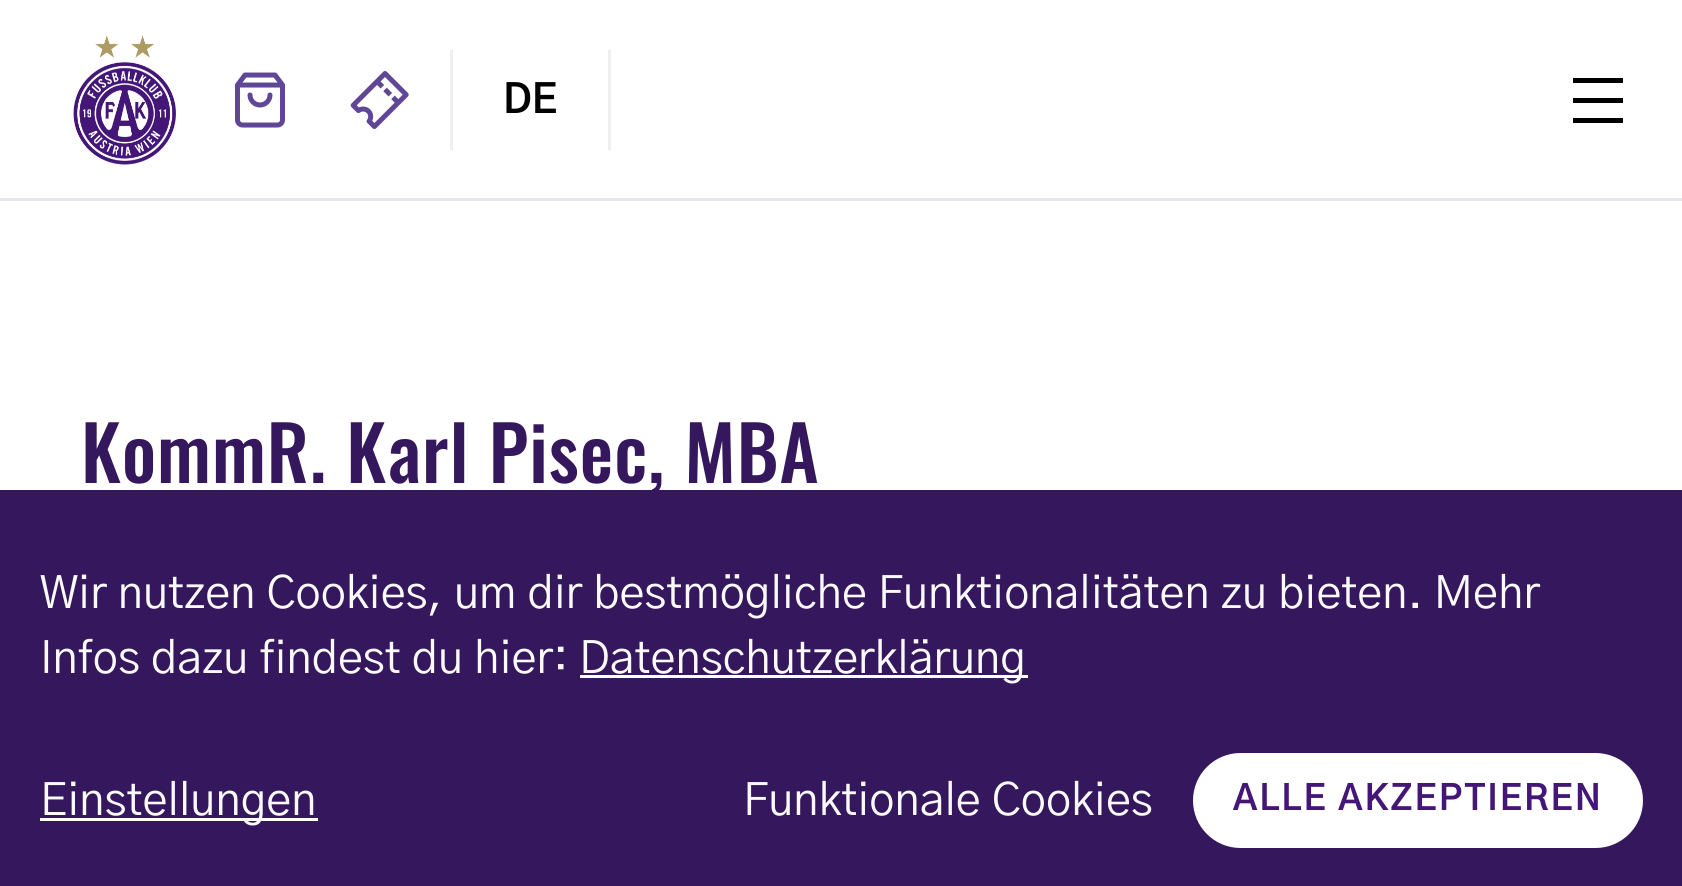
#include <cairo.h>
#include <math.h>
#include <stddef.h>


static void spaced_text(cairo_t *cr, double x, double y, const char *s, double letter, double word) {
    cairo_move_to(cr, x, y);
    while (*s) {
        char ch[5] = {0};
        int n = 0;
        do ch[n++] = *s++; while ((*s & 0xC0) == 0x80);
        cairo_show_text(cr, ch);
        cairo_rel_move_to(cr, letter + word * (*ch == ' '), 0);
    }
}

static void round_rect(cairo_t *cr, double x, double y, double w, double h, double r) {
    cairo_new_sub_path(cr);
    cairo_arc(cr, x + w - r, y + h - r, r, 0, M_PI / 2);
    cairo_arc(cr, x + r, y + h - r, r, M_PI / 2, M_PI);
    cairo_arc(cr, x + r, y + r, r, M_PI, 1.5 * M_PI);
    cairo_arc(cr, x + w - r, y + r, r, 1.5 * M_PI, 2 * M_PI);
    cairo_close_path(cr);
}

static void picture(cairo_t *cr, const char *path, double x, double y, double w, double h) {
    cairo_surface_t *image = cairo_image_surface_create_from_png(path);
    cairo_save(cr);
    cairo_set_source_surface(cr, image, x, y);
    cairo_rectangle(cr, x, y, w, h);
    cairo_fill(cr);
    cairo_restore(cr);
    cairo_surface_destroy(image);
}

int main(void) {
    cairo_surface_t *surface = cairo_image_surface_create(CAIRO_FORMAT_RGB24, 1682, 886);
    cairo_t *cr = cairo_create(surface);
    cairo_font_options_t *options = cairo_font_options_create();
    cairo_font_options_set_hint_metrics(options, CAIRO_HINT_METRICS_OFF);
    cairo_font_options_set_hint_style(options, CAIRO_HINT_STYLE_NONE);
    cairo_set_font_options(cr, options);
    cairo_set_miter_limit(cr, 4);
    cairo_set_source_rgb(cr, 1, 1, 1);
    cairo_paint(cr);
    cairo_set_source_rgb(cr, 0.898, 0.906, 0.922);
    cairo_rectangle(cr, 0, 198, 1682, 3);
    cairo_fill(cr);
    picture(cr, "img1.png", 73, 35, 103, 130);
    picture(cr, "img2.png", 235, 72, 50, 56);
    picture(cr, "img3.png", 350, 71, 59, 58);
    cairo_set_source_rgb(cr, 0.937, 0.937, 0.937);
    cairo_rectangle(cr, 450, 50, 3, 100);
    cairo_fill(cr);
    cairo_select_font_face(cr, "Gothic A1", CAIRO_FONT_SLANT_NORMAL, CAIRO_FONT_WEIGHT_BOLD);
    cairo_set_font_size(cr, 40);
    cairo_set_source_rgb(cr, 0, 0, 0);
    cairo_move_to(cr, 503, 113);
    cairo_show_text(cr, "DE");
    cairo_set_source_rgb(cr, 0.937, 0.937, 0.937);
    cairo_rectangle(cr, 608, 50, 3, 100);
    cairo_fill(cr);
    cairo_set_source_rgb(cr, 0, 0, 0);
    cairo_rectangle(cr, 1573, 98, 50, 5);
    cairo_fill(cr);
    cairo_rectangle(cr, 1573, 78, 50, 5);
    cairo_fill(cr);
    cairo_rectangle(cr, 1573, 118, 50, 5);
    cairo_fill(cr);
    cairo_select_font_face(cr, "Oswald Medium", CAIRO_FONT_SLANT_NORMAL, CAIRO_FONT_WEIGHT_NORMAL);
    cairo_set_font_size(cr, 75);
    cairo_set_source_rgb(cr, 0.204, 0.09, 0.361);
    spaced_text(cr, 81, 483, "KommR. Karl Pisec, MBA", 1, 0);
    cairo_rectangle(cr, 0, 490, 1682, 396);
    cairo_fill(cr);
    cairo_select_font_face(cr, "Gothic A1", CAIRO_FONT_SLANT_NORMAL, CAIRO_FONT_WEIGHT_NORMAL);
    cairo_set_font_size(cr, 45);
    cairo_set_source_rgb(cr, 0.98, 0.98, 0.98);
    cairo_move_to(cr, 40, 608);
    cairo_show_text(cr, "Wir nutzen Cookies, um dir bestmögliche Funktionalitäten zu bieten. Mehr");
    cairo_move_to(cr, 40, 673);
    cairo_show_text(cr, "Infos dazu findest du hier:");
    cairo_set_source_rgb(cr, 1, 1, 1);
    cairo_rectangle(cr, 580, 675, 448, 3);
    cairo_fill(cr);
    cairo_set_source_rgb(cr, 0.98, 0.98, 0.98);
    cairo_move_to(cr, 579, 673);
    cairo_show_text(cr, "Datenschutzerklärung");
    cairo_set_source_rgb(cr, 1, 1, 1);
    cairo_rectangle(cr, 40, 818, 278, 3);
    cairo_fill(cr);
    cairo_set_source_rgb(cr, 0.98, 0.98, 0.98);
    cairo_move_to(cr, 40, 815);
    cairo_show_text(cr, "Einstellungen");
    cairo_move_to(cr, 743, 815);
    cairo_show_text(cr, "Funktionale Cookies");
    cairo_set_source_rgb(cr, 1, 1, 1);
    round_rect(cr, 1193, 753, 450, 95, 47.5);
    cairo_fill(cr);
    cairo_select_font_face(cr, "Gothic A1", CAIRO_FONT_SLANT_NORMAL, CAIRO_FONT_WEIGHT_BOLD);
    cairo_set_font_size(cr, 35);
    cairo_set_source_rgb(cr, 0.267, 0.086, 0.471);
    spaced_text(cr, 1233, 810, "ALLE AKZEPTIEREN", 2, 0);
    cairo_surface_write_to_png(surface, "page.png");
    cairo_font_options_destroy(options);
    cairo_destroy(cr);
    cairo_surface_destroy(surface);
    return 0;
}
